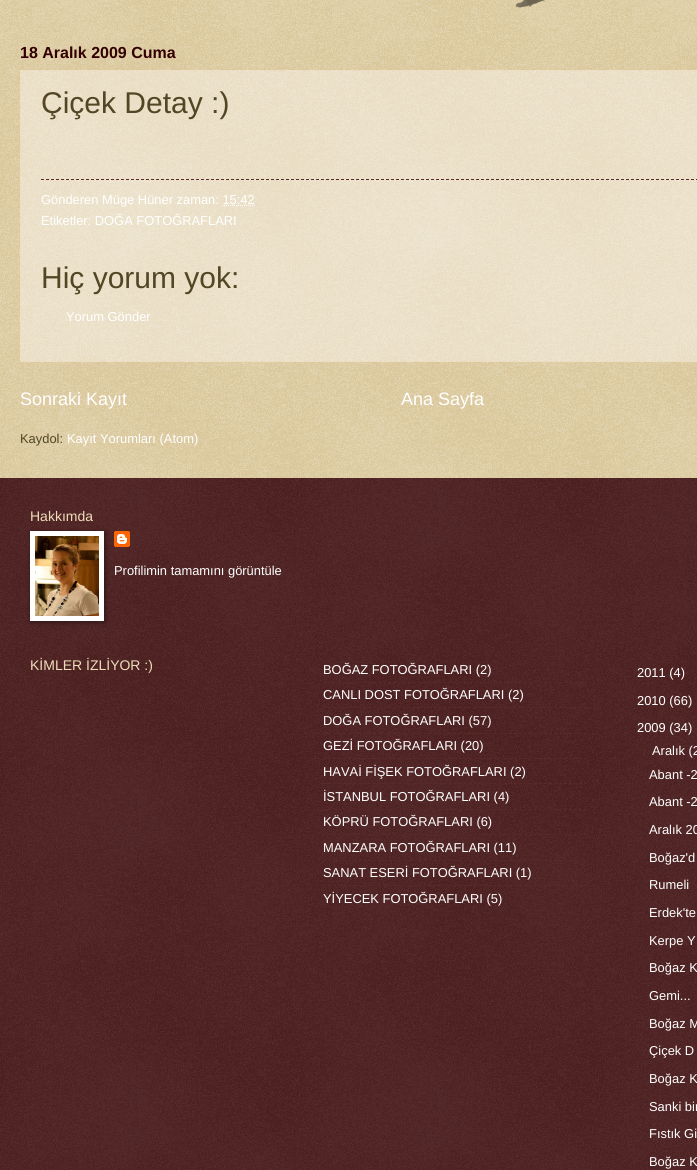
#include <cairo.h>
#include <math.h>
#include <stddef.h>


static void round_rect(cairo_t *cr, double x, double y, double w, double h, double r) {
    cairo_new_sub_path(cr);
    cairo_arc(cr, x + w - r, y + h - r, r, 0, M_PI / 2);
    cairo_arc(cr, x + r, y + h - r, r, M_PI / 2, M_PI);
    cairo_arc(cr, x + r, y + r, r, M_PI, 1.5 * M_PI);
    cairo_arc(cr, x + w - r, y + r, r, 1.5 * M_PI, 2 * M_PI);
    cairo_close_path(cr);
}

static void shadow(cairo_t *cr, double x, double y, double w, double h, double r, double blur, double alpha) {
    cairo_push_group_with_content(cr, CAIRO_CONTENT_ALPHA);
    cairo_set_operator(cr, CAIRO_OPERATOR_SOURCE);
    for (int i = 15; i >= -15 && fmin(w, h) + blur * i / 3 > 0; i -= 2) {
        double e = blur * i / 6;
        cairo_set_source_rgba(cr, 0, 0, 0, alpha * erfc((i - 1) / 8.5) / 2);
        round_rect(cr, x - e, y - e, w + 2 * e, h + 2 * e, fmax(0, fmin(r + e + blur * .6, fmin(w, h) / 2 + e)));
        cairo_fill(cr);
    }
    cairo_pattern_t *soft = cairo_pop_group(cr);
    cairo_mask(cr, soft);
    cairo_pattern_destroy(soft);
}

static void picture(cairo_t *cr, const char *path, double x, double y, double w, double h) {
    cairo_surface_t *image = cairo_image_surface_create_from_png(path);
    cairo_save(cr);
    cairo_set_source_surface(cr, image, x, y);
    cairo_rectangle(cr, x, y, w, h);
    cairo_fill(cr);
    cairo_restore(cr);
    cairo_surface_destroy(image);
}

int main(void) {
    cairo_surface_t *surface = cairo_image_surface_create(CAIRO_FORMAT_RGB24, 697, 1170);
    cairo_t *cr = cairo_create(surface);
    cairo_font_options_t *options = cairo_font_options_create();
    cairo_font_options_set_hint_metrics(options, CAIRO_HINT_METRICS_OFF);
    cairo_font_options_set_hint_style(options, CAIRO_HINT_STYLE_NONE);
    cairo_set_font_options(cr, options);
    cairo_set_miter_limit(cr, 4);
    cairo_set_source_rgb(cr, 0.753, 0.631, 0.329);
    cairo_paint(cr);
    picture(cr, "img1.png", 0, 0, 697, 478);
    picture(cr, "img2.png", 515, 0, 30, 8);
    cairo_select_font_face(cr, "Liberation Sans", CAIRO_FONT_SLANT_NORMAL, CAIRO_FONT_WEIGHT_BOLD);
    cairo_set_font_size(cr, 16);
    cairo_set_source_rgb(cr, 0.2, 0, 0);
    cairo_move_to(cr, 20, 58);
    cairo_show_text(cr, "18 Aralık 2009 Cuma");
    cairo_set_source_rgba(cr, 1, 1, 1, 0.4);
    cairo_rectangle(cr, 20, 70, 677, 292);
    cairo_fill(cr);
    cairo_new_path(cr);
    cairo_move_to(cr, 20, 70.5);
    cairo_line_to(cr, 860, 70.5);
    cairo_set_source_rgb(cr, 0.933, 0.867, 0.733);
    cairo_set_line_width(cr, 1);
    cairo_set_dash(cr, (double[]){1, 1}, 2, 0);
    cairo_stroke(cr);
    cairo_new_path(cr);
    cairo_move_to(cr, 20, 361.5);
    cairo_line_to(cr, 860, 361.5);
    cairo_stroke(cr);
    cairo_new_path(cr);
    cairo_move_to(cr, 20.5, 70);
    cairo_line_to(cr, 20.5, 362);
    cairo_stroke(cr);
    cairo_select_font_face(cr, "Liberation Sans", CAIRO_FONT_SLANT_NORMAL, CAIRO_FONT_WEIGHT_NORMAL);
    cairo_set_font_size(cr, 30);
    cairo_set_source_rgb(cr, 0.322, 0.275, 0.145);
    cairo_move_to(cr, 41, 113);
    cairo_show_text(cr, "Çiçek Detay :)");
    cairo_new_path(cr);
    cairo_move_to(cr, 41, 179.5);
    cairo_line_to(cr, 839, 179.5);
    cairo_set_source_rgb(cr, 0.357, 0.161, 0.161);
    cairo_set_dash(cr, (double[]){3, 2}, 2, 0);
    cairo_stroke(cr);
    cairo_set_font_size(cr, 12.9);
    cairo_set_source_rgb(cr, 1, 1, 1);
    cairo_move_to(cr, 41, 204);
    cairo_show_text(cr, "Gönderen Müge Hüner zaman: 15:42");
    cairo_new_path(cr);
    cairo_move_to(cr, 222, 205.5);
    cairo_line_to(cr, 254.5, 205.5);
    cairo_set_dash(cr, (double[]){1, 1}, 2, 0);
    cairo_stroke(cr);
    cairo_move_to(cr, 41, 225);
    cairo_show_text(cr, "Etiketler: DOĞA FOTOĞRAFLARI");
    cairo_set_font_size(cr, 30);
    cairo_set_source_rgb(cr, 0.322, 0.275, 0.145);
    cairo_move_to(cr, 41, 288);
    cairo_show_text(cr, "Hiç yorum yok:");
    cairo_set_font_size(cr, 12.9);
    cairo_set_source_rgb(cr, 1, 1, 1);
    cairo_move_to(cr, 66, 321);
    cairo_show_text(cr, "Yorum Gönder");
    cairo_set_font_size(cr, 18);
    cairo_move_to(cr, 20, 405);
    cairo_show_text(cr, "Sonraki Kayıt");
    cairo_move_to(cr, 401, 405);
    cairo_show_text(cr, "Ana Sayfa");
    cairo_set_font_size(cr, 12.9);
    cairo_set_source_rgb(cr, 0.322, 0.275, 0.145);
    cairo_move_to(cr, 20, 443);
    cairo_show_text(cr, "Kaydol:");
    cairo_set_source_rgb(cr, 1, 1, 1);
    cairo_move_to(cr, 67, 443);
    cairo_show_text(cr, "Kayıt Yorumları (Atom)");
    cairo_set_source_rgb(cr, 0.2, 0, 0);
    cairo_rectangle(cr, 0, 478, 697, 692);
    cairo_fill(cr);
    picture(cr, "img3.png", 0, 478, 697, 692);
    cairo_set_font_size(cr, 14);
    cairo_set_source_rgb(cr, 0.933, 0.867, 0.733);
    cairo_move_to(cr, 30, 521);
    cairo_show_text(cr, "Hakkımda");
    cairo_set_source_rgb(cr, 0, 0, 0);
    shadow(cr, 31, 532, 74, 90, 0, 2.5, 0.5);
    cairo_set_source_rgb(cr, 1, 1, 1);
    cairo_rectangle(cr, 30, 531, 74, 90);
    cairo_fill(cr);
    picture(cr, "img4.png", 35, 536, 64, 80);
    picture(cr, "img5.png", 114, 531, 16, 16);
    cairo_set_font_size(cr, 12.9);
    cairo_move_to(cr, 114, 575);
    cairo_show_text(cr, "Profilimin tamamını görüntüle");
    cairo_set_font_size(cr, 14);
    cairo_set_source_rgb(cr, 0.933, 0.867, 0.733);
    cairo_move_to(cr, 30, 670);
    cairo_show_text(cr, "KİMLER İZLİYOR :)");
    cairo_set_font_size(cr, 12.9);
    cairo_set_source_rgb(cr, 1, 1, 1);
    cairo_move_to(cr, 323, 674);
    cairo_show_text(cr, "BOĞAZ FOTOĞRAFLARI (2)");
    cairo_new_path(cr);
    cairo_move_to(cr, 323, 682.5);
    cairo_line_to(cr, 587, 682.5);
    cairo_set_source_rgb(cr, 0.357, 0.161, 0.161);
    cairo_set_dash(cr, (double[]){3, 2.02}, 2, 0);
    cairo_stroke(cr);
    cairo_set_source_rgb(cr, 1, 1, 1);
    cairo_move_to(cr, 323, 699);
    cairo_show_text(cr, "CANLI DOST FOTOĞRAFLARI (2)");
    cairo_new_path(cr);
    cairo_move_to(cr, 323, 707.5);
    cairo_line_to(cr, 587, 707.5);
    cairo_set_source_rgb(cr, 0.357, 0.161, 0.161);
    cairo_stroke(cr);
    cairo_set_source_rgb(cr, 1, 1, 1);
    cairo_move_to(cr, 323, 725);
    cairo_show_text(cr, "DOĞA FOTOĞRAFLARI (57)");
    cairo_new_path(cr);
    cairo_move_to(cr, 323, 733.5);
    cairo_line_to(cr, 587, 733.5);
    cairo_set_source_rgb(cr, 0.357, 0.161, 0.161);
    cairo_stroke(cr);
    cairo_set_source_rgb(cr, 1, 1, 1);
    cairo_move_to(cr, 323, 750);
    cairo_show_text(cr, "GEZİ FOTOĞRAFLARI (20)");
    cairo_new_path(cr);
    cairo_move_to(cr, 323, 758.5);
    cairo_line_to(cr, 587, 758.5);
    cairo_set_source_rgb(cr, 0.357, 0.161, 0.161);
    cairo_stroke(cr);
    cairo_set_source_rgb(cr, 1, 1, 1);
    cairo_move_to(cr, 323, 776);
    cairo_show_text(cr, "HAVAİ FİŞEK FOTOĞRAFLARI (2)");
    cairo_new_path(cr);
    cairo_move_to(cr, 323, 783.5);
    cairo_line_to(cr, 587, 783.5);
    cairo_set_source_rgb(cr, 0.357, 0.161, 0.161);
    cairo_stroke(cr);
    cairo_set_source_rgb(cr, 1, 1, 1);
    cairo_move_to(cr, 323, 801);
    cairo_show_text(cr, "İSTANBUL FOTOĞRAFLARI (4)");
    cairo_new_path(cr);
    cairo_move_to(cr, 323, 809.5);
    cairo_line_to(cr, 587, 809.5);
    cairo_set_source_rgb(cr, 0.357, 0.161, 0.161);
    cairo_stroke(cr);
    cairo_set_source_rgb(cr, 1, 1, 1);
    cairo_move_to(cr, 323, 826);
    cairo_show_text(cr, "KÖPRÜ FOTOĞRAFLARI (6)");
    cairo_new_path(cr);
    cairo_move_to(cr, 323, 834.5);
    cairo_line_to(cr, 587, 834.5);
    cairo_set_source_rgb(cr, 0.357, 0.161, 0.161);
    cairo_stroke(cr);
    cairo_set_source_rgb(cr, 1, 1, 1);
    cairo_move_to(cr, 323, 852);
    cairo_show_text(cr, "MANZARA FOTOĞRAFLARI (11)");
    cairo_new_path(cr);
    cairo_move_to(cr, 323, 860.5);
    cairo_line_to(cr, 587, 860.5);
    cairo_set_source_rgb(cr, 0.357, 0.161, 0.161);
    cairo_stroke(cr);
    cairo_set_source_rgb(cr, 1, 1, 1);
    cairo_move_to(cr, 323, 877);
    cairo_show_text(cr, "SANAT ESERİ FOTOĞRAFLARI (1)");
    cairo_new_path(cr);
    cairo_move_to(cr, 323, 885.5);
    cairo_line_to(cr, 587, 885.5);
    cairo_set_source_rgb(cr, 0.357, 0.161, 0.161);
    cairo_stroke(cr);
    cairo_set_source_rgb(cr, 1, 1, 1);
    cairo_move_to(cr, 323, 903);
    cairo_show_text(cr, "YİYECEK FOTOĞRAFLARI (5)");
    cairo_move_to(cr, 637, 677);
    cairo_show_text(cr, "2011 (4)");
    cairo_move_to(cr, 637, 705);
    cairo_show_text(cr, "2010 (66)");
    cairo_move_to(cr, 637, 732);
    cairo_show_text(cr, "2009 (34)");
    cairo_move_to(cr, 652, 755);
    cairo_show_text(cr, "Aralık (2");
    cairo_move_to(cr, 649, 779);
    cairo_show_text(cr, "Abant -2");
    cairo_move_to(cr, 649, 806);
    cairo_show_text(cr, "Abant -2");
    cairo_move_to(cr, 649, 834);
    cairo_show_text(cr, "Aralık 20");
    cairo_move_to(cr, 649, 862);
    cairo_show_text(cr, "Boğaz'd");
    cairo_move_to(cr, 649, 889);
    cairo_show_text(cr, "Rumeli");
    cairo_move_to(cr, 649, 917);
    cairo_show_text(cr, "Erdek'te");
    cairo_move_to(cr, 649, 945);
    cairo_show_text(cr, "Kerpe Y");
    cairo_move_to(cr, 649, 972);
    cairo_show_text(cr, "Boğaz K");
    cairo_move_to(cr, 649, 1000);
    cairo_show_text(cr, "Gemi...");
    cairo_move_to(cr, 649, 1028);
    cairo_show_text(cr, "Boğaz M");
    cairo_move_to(cr, 649, 1055);
    cairo_show_text(cr, "Çiçek D");
    cairo_move_to(cr, 649, 1083);
    cairo_show_text(cr, "Boğaz K");
    cairo_move_to(cr, 649, 1111);
    cairo_show_text(cr, "Sanki bir");
    cairo_move_to(cr, 649, 1138);
    cairo_show_text(cr, "Fıstık Gi");
    cairo_move_to(cr, 649, 1166);
    cairo_show_text(cr, "Boğaz K");
    cairo_surface_write_to_png(surface, "page.png");
    cairo_font_options_destroy(options);
    cairo_destroy(cr);
    cairo_surface_destroy(surface);
    return 0;
}
